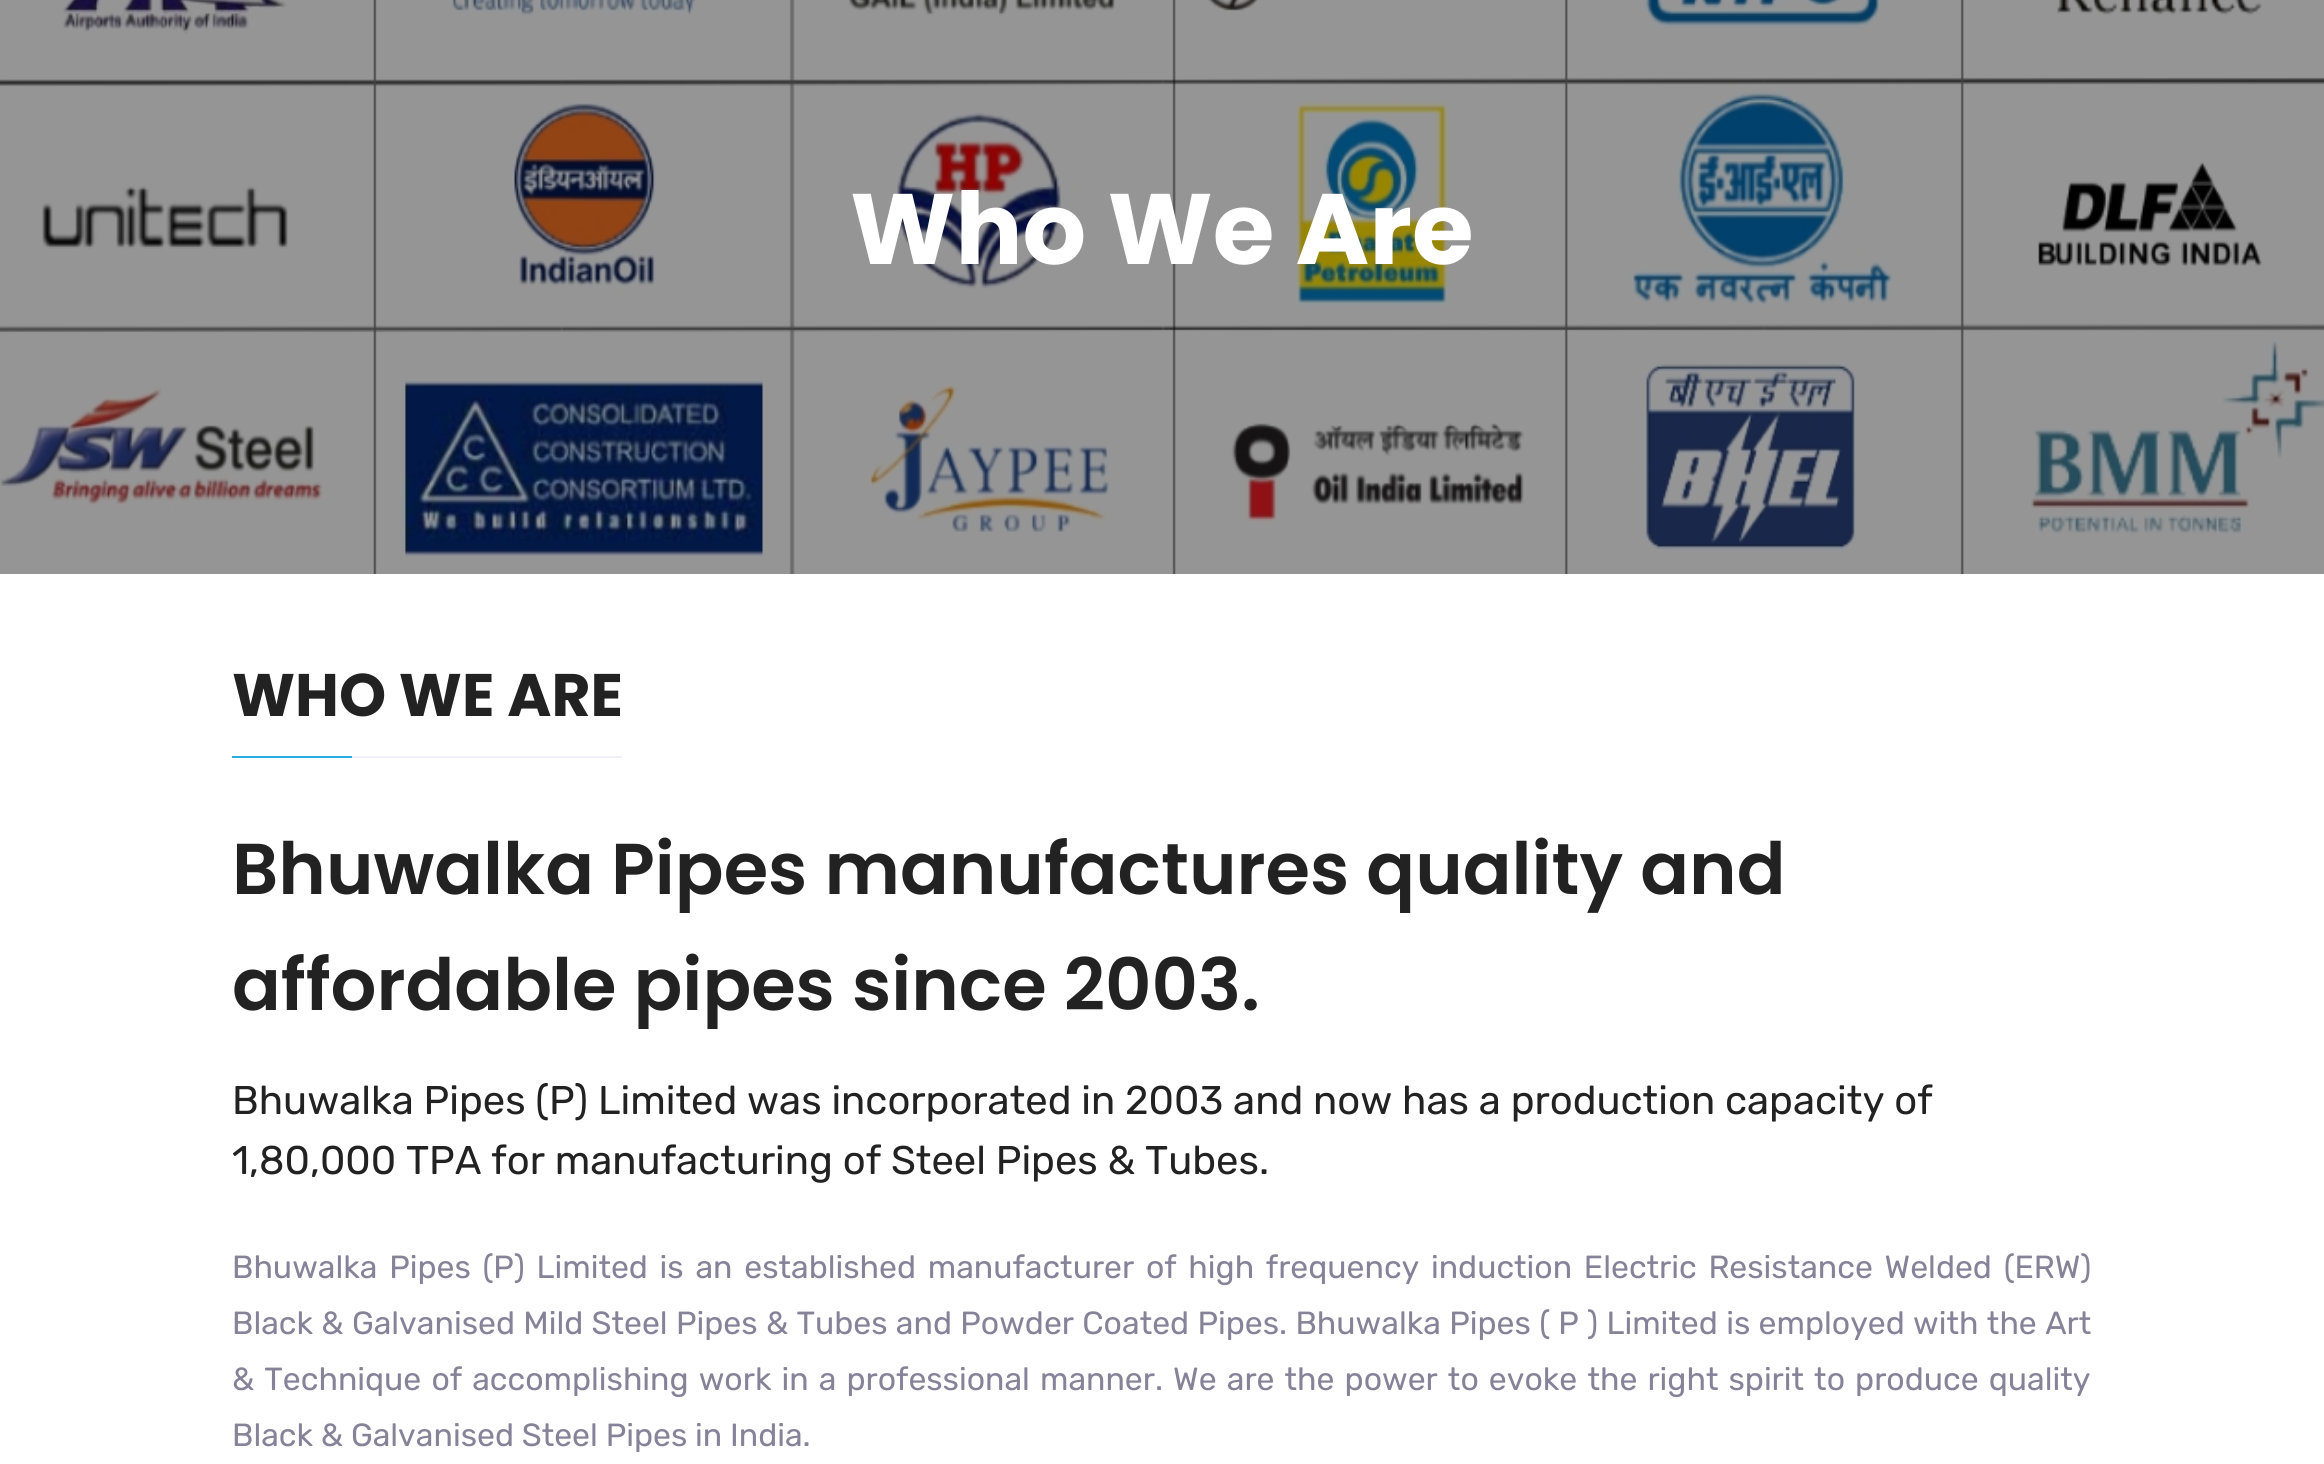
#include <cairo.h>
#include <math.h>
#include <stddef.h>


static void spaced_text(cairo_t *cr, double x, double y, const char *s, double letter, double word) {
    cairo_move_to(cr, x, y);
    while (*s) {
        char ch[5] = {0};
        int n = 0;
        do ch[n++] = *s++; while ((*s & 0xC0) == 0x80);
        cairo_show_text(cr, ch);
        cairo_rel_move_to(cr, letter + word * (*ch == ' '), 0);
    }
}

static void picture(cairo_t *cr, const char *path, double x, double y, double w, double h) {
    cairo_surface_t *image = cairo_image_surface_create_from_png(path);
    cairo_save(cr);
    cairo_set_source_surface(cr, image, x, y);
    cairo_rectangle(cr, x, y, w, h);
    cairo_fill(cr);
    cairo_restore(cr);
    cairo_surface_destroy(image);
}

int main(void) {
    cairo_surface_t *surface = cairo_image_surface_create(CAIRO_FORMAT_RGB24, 2324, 1464);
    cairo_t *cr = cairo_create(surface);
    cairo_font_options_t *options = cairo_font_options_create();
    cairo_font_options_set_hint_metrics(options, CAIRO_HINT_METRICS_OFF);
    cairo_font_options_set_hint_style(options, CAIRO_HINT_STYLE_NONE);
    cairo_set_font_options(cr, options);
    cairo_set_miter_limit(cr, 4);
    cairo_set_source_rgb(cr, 1, 1, 1);
    cairo_paint(cr);
    picture(cr, "img1.png", 0, 0, 2324, 574);
    cairo_select_font_face(cr, "Poppins", CAIRO_FONT_SLANT_NORMAL, CAIRO_FONT_WEIGHT_BOLD);
    cairo_set_font_size(cr, 100);
    cairo_set_source_rgb(cr, 1, 1, 1);
    cairo_move_to(cr, 850, 264);
    cairo_show_text(cr, "Who We Are");
    cairo_set_font_size(cr, 60);
    cairo_set_source_rgb(cr, 0.133, 0.133, 0.133);
    cairo_move_to(cr, 232, 716);
    cairo_show_text(cr, "WHO WE ARE");
    cairo_set_source_rgb(cr, 0.161, 0.678, 0.89);
    cairo_rectangle(cr, 232, 756, 120, 2);
    cairo_fill(cr);
    cairo_set_source_rgb(cr, 0.949, 0.945, 0.976);
    cairo_rectangle(cr, 352, 756, 270, 2);
    cairo_fill(cr);
    cairo_select_font_face(cr, "Poppins SemiBold", CAIRO_FONT_SLANT_NORMAL, CAIRO_FONT_WEIGHT_NORMAL);
    cairo_set_font_size(cr, 72);
    cairo_set_source_rgb(cr, 0.133, 0.133, 0.133);
    cairo_move_to(cr, 232, 894);
    cairo_show_text(cr, "Bhuwalka Pipes manufactures quality and");
    cairo_move_to(cr, 232, 1010);
    cairo_show_text(cr, "affordable pipes since 2003.");
    cairo_select_font_face(cr, "Rubik", CAIRO_FONT_SLANT_NORMAL, CAIRO_FONT_WEIGHT_NORMAL);
    cairo_set_font_size(cr, 40);
    cairo_move_to(cr, 232, 1114);
    cairo_show_text(cr, "Bhuwalka Pipes (P) Limited was incorporated in 2003 and now has a production capacity of");
    cairo_move_to(cr, 232, 1174);
    cairo_show_text(cr, "1,80,000 TPA for manufacturing of Steel Pipes & Tubes.");
    cairo_set_font_size(cr, 32);
    cairo_set_source_rgb(cr, 0.525, 0.51, 0.596);
    spaced_text(cr, 232, 1278, "Bhuwalka Pipes (P) Limited is an established manufacturer of high frequency induction Electric Resistance Welded (ERW)", 0, 3.9);
    spaced_text(cr, 232, 1334, "Black & Galvanised Mild Steel Pipes & Tubes and Powder Coated Pipes. Bhuwalka Pipes ( P ) Limited is employed with the Art", 0, 0.5);
    spaced_text(cr, 232, 1390, "& Technique of accomplishing work in a professional manner. We are the power to evoke the right spirit to produce quality", 0, 2.25);
    cairo_move_to(cr, 232, 1446);
    cairo_show_text(cr, "Black & Galvanised Steel Pipes in India.");
    cairo_surface_write_to_png(surface, "page.png");
    cairo_font_options_destroy(options);
    cairo_destroy(cr);
    cairo_surface_destroy(surface);
    return 0;
}
